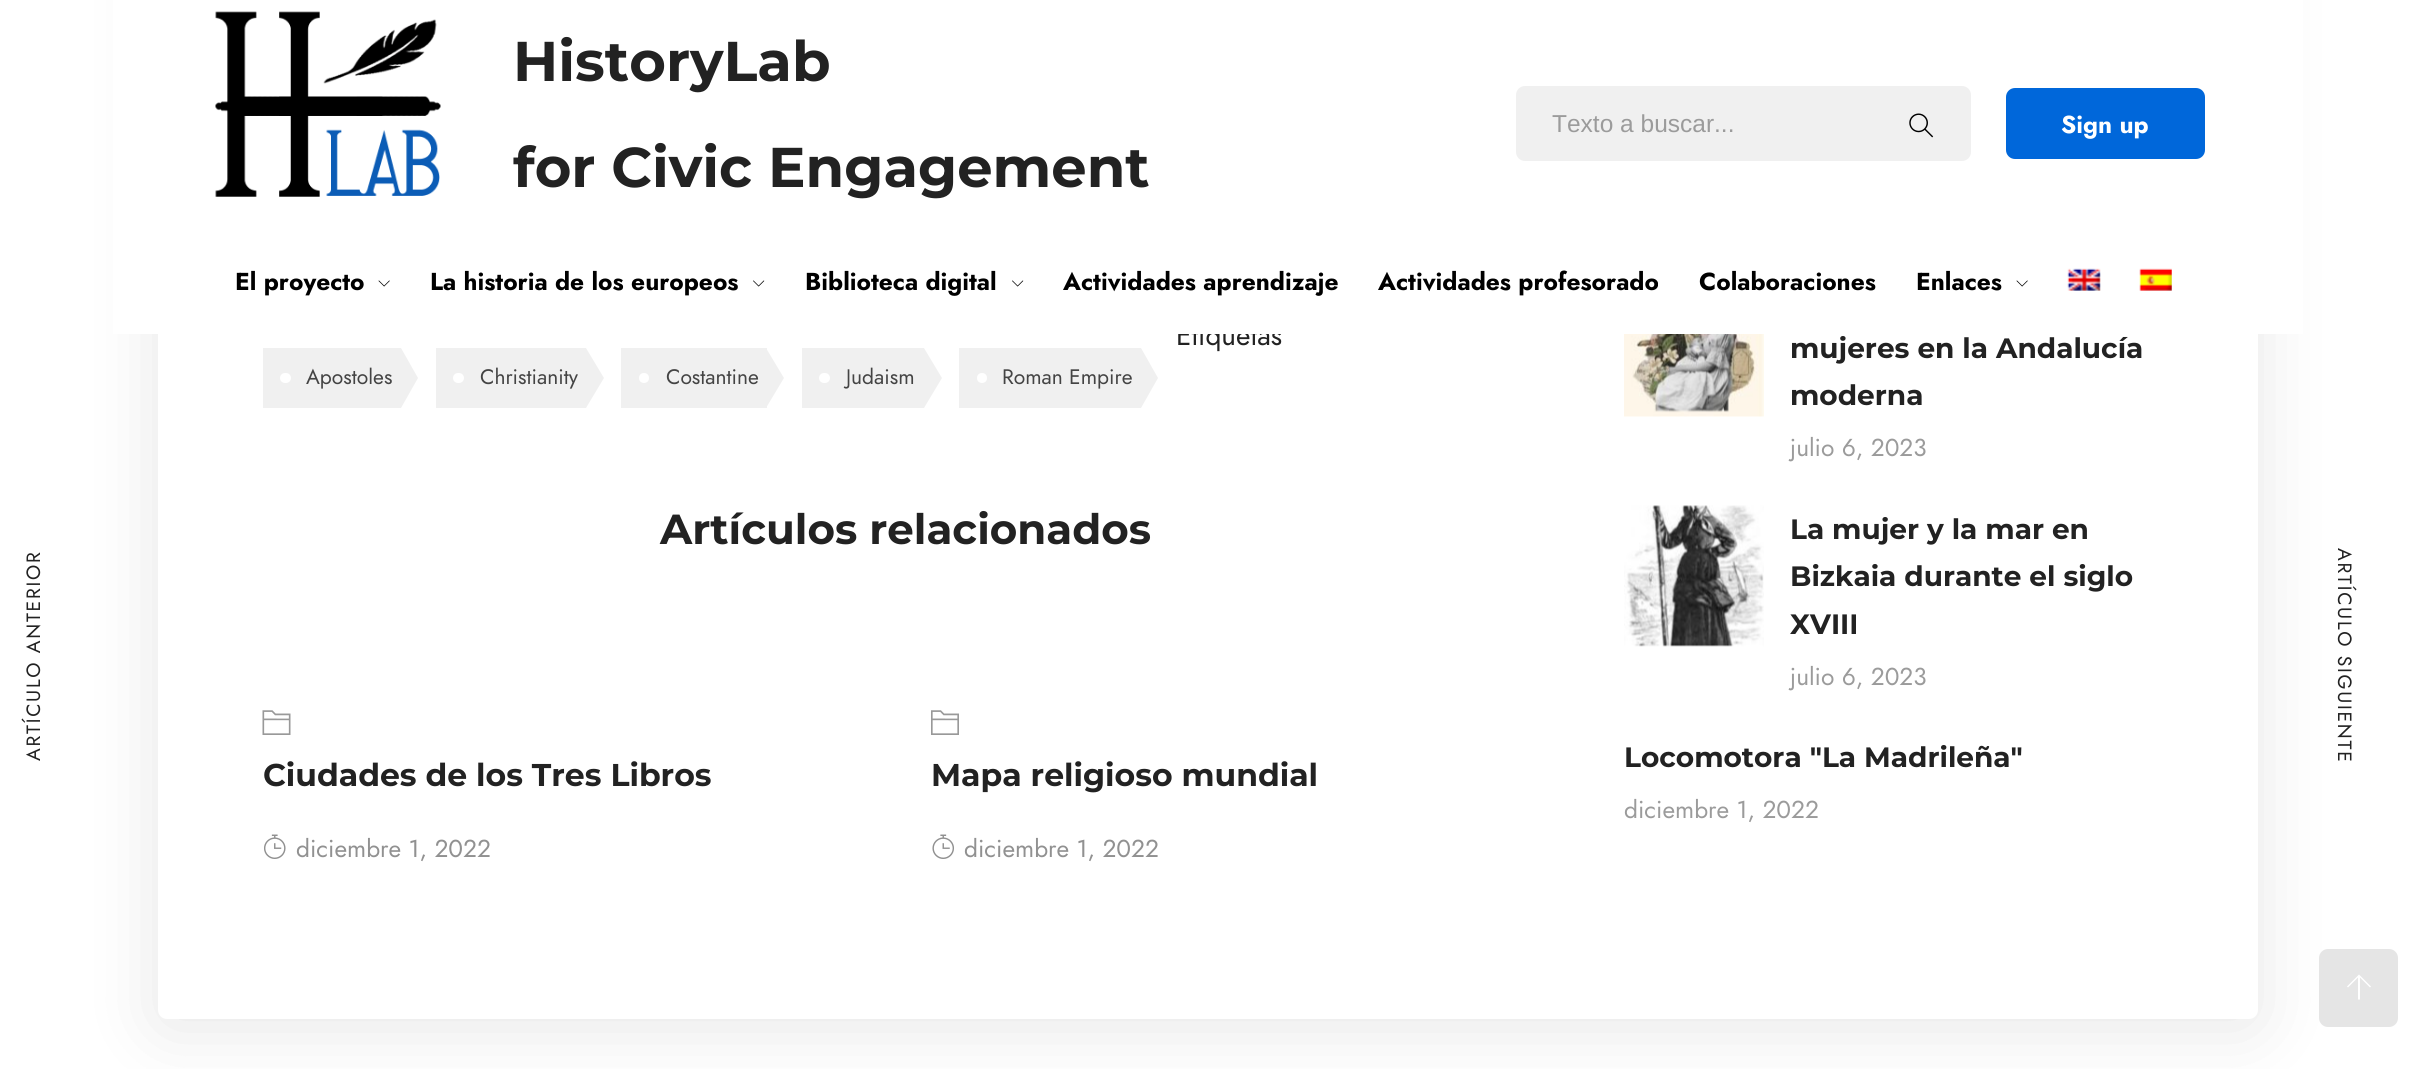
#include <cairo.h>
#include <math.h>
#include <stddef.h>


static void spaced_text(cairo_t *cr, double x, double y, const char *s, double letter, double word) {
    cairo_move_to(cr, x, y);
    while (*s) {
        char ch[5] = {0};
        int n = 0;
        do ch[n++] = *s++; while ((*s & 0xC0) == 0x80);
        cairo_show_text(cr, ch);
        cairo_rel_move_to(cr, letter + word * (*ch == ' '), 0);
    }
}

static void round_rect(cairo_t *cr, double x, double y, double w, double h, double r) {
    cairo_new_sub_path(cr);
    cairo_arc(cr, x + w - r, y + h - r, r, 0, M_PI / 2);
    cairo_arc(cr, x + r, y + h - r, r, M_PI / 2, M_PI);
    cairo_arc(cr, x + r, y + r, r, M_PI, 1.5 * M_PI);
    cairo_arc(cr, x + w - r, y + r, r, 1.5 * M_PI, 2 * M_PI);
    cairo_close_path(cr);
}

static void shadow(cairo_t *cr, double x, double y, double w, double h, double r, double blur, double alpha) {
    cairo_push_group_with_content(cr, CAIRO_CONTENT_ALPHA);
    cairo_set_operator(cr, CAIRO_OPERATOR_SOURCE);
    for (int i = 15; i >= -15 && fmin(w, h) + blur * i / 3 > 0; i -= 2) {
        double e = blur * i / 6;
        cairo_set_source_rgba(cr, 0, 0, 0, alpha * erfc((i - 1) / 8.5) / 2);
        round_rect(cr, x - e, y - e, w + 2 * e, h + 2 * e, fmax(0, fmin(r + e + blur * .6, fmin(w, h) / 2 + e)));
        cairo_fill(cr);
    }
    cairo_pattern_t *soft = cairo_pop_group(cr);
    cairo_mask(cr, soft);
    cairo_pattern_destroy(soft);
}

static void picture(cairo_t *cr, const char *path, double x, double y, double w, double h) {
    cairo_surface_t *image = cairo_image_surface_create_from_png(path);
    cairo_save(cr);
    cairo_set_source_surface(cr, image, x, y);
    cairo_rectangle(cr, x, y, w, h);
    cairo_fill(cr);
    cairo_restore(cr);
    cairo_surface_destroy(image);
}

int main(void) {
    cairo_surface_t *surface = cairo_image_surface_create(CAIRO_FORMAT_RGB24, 2414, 1069);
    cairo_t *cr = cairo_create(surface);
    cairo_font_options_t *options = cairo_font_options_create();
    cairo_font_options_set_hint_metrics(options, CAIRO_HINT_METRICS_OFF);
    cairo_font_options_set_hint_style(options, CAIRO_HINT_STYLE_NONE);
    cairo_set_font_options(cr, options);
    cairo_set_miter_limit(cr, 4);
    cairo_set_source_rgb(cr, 1, 1, 1);
    cairo_paint(cr);
    cairo_set_source_rgb(cr, 0, 0, 0);
    shadow(cr, 158, -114, 2100, 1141, 9, 35, 0.1);
    cairo_set_source_rgb(cr, 1, 1, 1);
    round_rect(cr, 158, -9, 2100, 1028, 9);
    cairo_fill(cr);
    cairo_select_font_face(cr, "Jost", CAIRO_FONT_SLANT_NORMAL, CAIRO_FONT_WEIGHT_NORMAL);
    cairo_set_font_size(cr, 28);
    cairo_set_source_rgb(cr, 0.133, 0.133, 0.133);
    cairo_move_to(cr, 1176, 345);
    cairo_show_text(cr, "Etiquetas");
    cairo_set_source_rgb(cr, 1, 1, 1);
    cairo_rectangle(cr, 113, 0, 2190, 334);
    cairo_fill(cr);
    picture(cr, "img1.png", 215, 11, 226, 186);
    cairo_select_font_face(cr, "Montserrat Thin", CAIRO_FONT_SLANT_NORMAL, CAIRO_FONT_WEIGHT_NORMAL);
    cairo_set_font_size(cr, 56);
    cairo_set_source_rgb(cr, 0.133, 0.133, 0.133);
    cairo_move_to(cr, 513, 81);
    cairo_show_text(cr, "HistoryLab");
    cairo_move_to(cr, 513, 187);
    cairo_show_text(cr, "for Civic Engagement");
    cairo_set_source_rgb(cr, 0.941, 0.941, 0.941);
    round_rect(cr, 1517, 87, 453, 73, 8);
    cairo_fill_preserve(cr);
    cairo_stroke(cr);
    cairo_select_font_face(cr, "Liberation Sans", CAIRO_FONT_SLANT_NORMAL, CAIRO_FONT_WEIGHT_NORMAL);
    cairo_set_font_size(cr, 24.5);
    cairo_set_source_rgb(cr, 0.608, 0.608, 0.608);
    cairo_move_to(cr, 1552, 132);
    cairo_show_text(cr, "Texto a buscar...");
    picture(cr, "img2.png", 1909, 113, 25, 25);
    cairo_set_source_rgb(cr, 0, 0.404, 0.855);
    round_rect(cr, 2008, 90, 195, 67, 7);
    cairo_fill_preserve(cr);
    cairo_set_line_width(cr, 4);
    cairo_stroke(cr);
    cairo_select_font_face(cr, "Jost", CAIRO_FONT_SLANT_NORMAL, CAIRO_FONT_WEIGHT_BOLD);
    cairo_set_source_rgb(cr, 1, 1, 1);
    cairo_move_to(cr, 2061, 133);
    cairo_show_text(cr, "Sign up");
    cairo_set_source_rgb(cr, 0, 0, 0);
    cairo_move_to(cr, 235, 290);
    cairo_show_text(cr, "El proyecto");
    picture(cr, "img3.png", 378, 280, 12, 7);
    cairo_move_to(cr, 430, 290);
    cairo_show_text(cr, "La historia de los europeos");
    picture(cr, "img4.png", 753, 280, 12, 7);
    cairo_move_to(cr, 805, 290);
    cairo_show_text(cr, "Biblioteca digital");
    picture(cr, "img4.png", 1012, 280, 12, 7);
    cairo_move_to(cr, 1063, 290);
    cairo_show_text(cr, "Actividades aprendizaje");
    cairo_move_to(cr, 1378, 290);
    cairo_show_text(cr, "Actividades profesorado");
    cairo_move_to(cr, 1699, 290);
    cairo_show_text(cr, "Colaboraciones");
    cairo_move_to(cr, 1916, 290);
    cairo_show_text(cr, "Enlaces");
    picture(cr, "img3.png", 2016, 280, 12, 7);
    picture(cr, "img5.png", 2067, 268, 34, 23);
    picture(cr, "img6.png", 2139, 268, 33, 23);
    cairo_select_font_face(cr, "Jost", CAIRO_FONT_SLANT_NORMAL, CAIRO_FONT_WEIGHT_NORMAL);
    cairo_set_font_size(cr, 19.25);
    cairo_set_source_rgb(cr, 0.133, 0.133, 0.133);
    cairo_save(cr);
    cairo_translate(cr, 40, 761);
    cairo_rotate(cr, -90 * M_PI / 180);
    spaced_text(cr, 0, 0, "ARTÍCULO ANTERIOR", 1.75, 0);
    cairo_restore(cr);
    cairo_set_source_rgb(cr, 0.941, 0.941, 0.941);
    cairo_rectangle(cr, 263, 348, 138, 60);
    cairo_fill(cr);
    cairo_set_source_rgb(cr, 1, 1, 1);
    round_rect(cr, 280, 373, 11, 10, 5);
    cairo_fill(cr);
    cairo_set_font_size(cr, 21);
    cairo_set_source_rgb(cr, 0.267, 0.267, 0.267);
    cairo_move_to(cr, 306, 384);
    cairo_show_text(cr, "Apostoles");
    cairo_set_source_rgb(cr, 0.941, 0.941, 0.941);
    cairo_new_path(cr);
    cairo_move_to(cr, 401, 408);
    cairo_line_to(cr, 401, 348);
    cairo_line_to(cr, 418, 378);
    cairo_close_path(cr);
    cairo_fill(cr);
    cairo_rectangle(cr, 436, 348, 150, 60);
    cairo_fill(cr);
    cairo_set_source_rgb(cr, 1, 1, 1);
    round_rect(cr, 453, 373, 11, 10, 5);
    cairo_fill(cr);
    cairo_set_source_rgb(cr, 0.267, 0.267, 0.267);
    cairo_move_to(cr, 480, 384);
    cairo_show_text(cr, "Christianity");
    cairo_set_source_rgb(cr, 0.941, 0.941, 0.941);
    cairo_new_path(cr);
    cairo_move_to(cr, 586, 408);
    cairo_line_to(cr, 586, 348);
    cairo_line_to(cr, 604, 378);
    cairo_close_path(cr);
    cairo_fill(cr);
    cairo_rectangle(cr, 621, 348, 146, 60);
    cairo_fill(cr);
    cairo_set_source_rgb(cr, 1, 1, 1);
    cairo_arc(cr, 644, 378, 5, 0, 2 * M_PI);
    cairo_fill(cr);
    cairo_set_source_rgb(cr, 0.267, 0.267, 0.267);
    cairo_move_to(cr, 666, 384);
    cairo_show_text(cr, "Costantine");
    cairo_set_source_rgb(cr, 0.941, 0.941, 0.941);
    cairo_new_path(cr);
    cairo_move_to(cr, 766, 408);
    cairo_line_to(cr, 766, 348);
    cairo_line_to(cr, 784, 378);
    cairo_close_path(cr);
    cairo_fill(cr);
    cairo_rectangle(cr, 802, 348, 122, 60);
    cairo_fill(cr);
    cairo_set_source_rgb(cr, 1, 1, 1);
    round_rect(cr, 819, 373, 11, 10, 5);
    cairo_fill(cr);
    cairo_set_source_rgb(cr, 0.267, 0.267, 0.267);
    cairo_move_to(cr, 846, 384);
    cairo_show_text(cr, "Judaism");
    cairo_set_source_rgb(cr, 0.941, 0.941, 0.941);
    cairo_new_path(cr);
    cairo_move_to(cr, 924, 408);
    cairo_line_to(cr, 924, 348);
    cairo_line_to(cr, 942, 378);
    cairo_close_path(cr);
    cairo_fill(cr);
    cairo_rectangle(cr, 959, 348, 182, 60);
    cairo_fill(cr);
    cairo_set_source_rgb(cr, 1, 1, 1);
    cairo_arc(cr, 982, 378, 5, 0, 2 * M_PI);
    cairo_fill(cr);
    cairo_set_source_rgb(cr, 0.267, 0.267, 0.267);
    cairo_move_to(cr, 1002, 384);
    cairo_show_text(cr, "Roman Empire");
    cairo_set_source_rgb(cr, 0.941, 0.941, 0.941);
    cairo_new_path(cr);
    cairo_move_to(cr, 1141, 408);
    cairo_line_to(cr, 1141, 348);
    cairo_line_to(cr, 1158, 378);
    cairo_close_path(cr);
    cairo_fill(cr);
    cairo_select_font_face(cr, "Montserrat Thin", CAIRO_FONT_SLANT_NORMAL, CAIRO_FONT_WEIGHT_NORMAL);
    cairo_set_font_size(cr, 42);
    cairo_set_source_rgb(cr, 0.133, 0.133, 0.133);
    cairo_move_to(cr, 660, 544);
    cairo_show_text(cr, "Artículos relacionados");
    picture(cr, "img7.png", 262, 710, 29, 25);
    cairo_set_font_size(cr, 31.5);
    cairo_move_to(cr, 263, 786);
    cairo_show_text(cr, "Ciudades de los Tres Libros");
    picture(cr, "img8.png", 264, 834, 22, 25);
    cairo_select_font_face(cr, "Jost", CAIRO_FONT_SLANT_NORMAL, CAIRO_FONT_WEIGHT_NORMAL);
    cairo_set_font_size(cr, 24.5);
    cairo_set_source_rgb(cr, 0.569, 0.569, 0.569);
    cairo_move_to(cr, 296, 857);
    cairo_show_text(cr, "diciembre 1, 2022");
    picture(cr, "img9.png", 931, 710, 28, 25);
    cairo_select_font_face(cr, "Montserrat Thin", CAIRO_FONT_SLANT_NORMAL, CAIRO_FONT_WEIGHT_NORMAL);
    cairo_set_font_size(cr, 31.5);
    cairo_set_source_rgb(cr, 0.133, 0.133, 0.133);
    cairo_move_to(cr, 931, 786);
    cairo_show_text(cr, "Mapa religioso mundial");
    picture(cr, "img10.png", 932, 834, 22, 25);
    cairo_select_font_face(cr, "Jost", CAIRO_FONT_SLANT_NORMAL, CAIRO_FONT_WEIGHT_NORMAL);
    cairo_set_font_size(cr, 24.5);
    cairo_set_source_rgb(cr, 0.569, 0.569, 0.569);
    cairo_move_to(cr, 964, 857);
    cairo_show_text(cr, "diciembre 1, 2022");
    cairo_set_font_size(cr, 19.25);
    cairo_set_source_rgb(cr, 0.133, 0.133, 0.133);
    cairo_save(cr);
    cairo_translate(cr, 2338, 548);
    cairo_rotate(cr, 90 * M_PI / 180);
    spaced_text(cr, 0, 0, "ARTÍCULO SIGUIENTE", 1.75, 0);
    cairo_restore(cr);
    picture(cr, "img11.png", 1624, 334, 140, 83);
    cairo_select_font_face(cr, "Montserrat Thin", CAIRO_FONT_SLANT_NORMAL, CAIRO_FONT_WEIGHT_NORMAL);
    cairo_set_font_size(cr, 28);
    cairo_move_to(cr, 1790, 358);
    cairo_show_text(cr, "mujeres en la Andalucía");
    cairo_move_to(cr, 1790, 405);
    cairo_show_text(cr, "moderna");
    cairo_select_font_face(cr, "Jost", CAIRO_FONT_SLANT_NORMAL, CAIRO_FONT_WEIGHT_NORMAL);
    cairo_set_font_size(cr, 24.5);
    cairo_set_source_rgb(cr, 0.608, 0.608, 0.608);
    cairo_move_to(cr, 1790, 456);
    cairo_show_text(cr, "julio 6, 2023");
    picture(cr, "img12.png", 1624, 505, 140, 142);
    cairo_select_font_face(cr, "Montserrat Thin", CAIRO_FONT_SLANT_NORMAL, CAIRO_FONT_WEIGHT_NORMAL);
    cairo_set_font_size(cr, 28);
    cairo_set_source_rgb(cr, 0.133, 0.133, 0.133);
    cairo_move_to(cr, 1790, 539);
    cairo_show_text(cr, "La mujer y la mar en");
    cairo_move_to(cr, 1790, 586);
    cairo_show_text(cr, "Bizkaia durante el siglo");
    cairo_move_to(cr, 1790, 634);
    cairo_show_text(cr, "XVIII");
    cairo_select_font_face(cr, "Jost", CAIRO_FONT_SLANT_NORMAL, CAIRO_FONT_WEIGHT_NORMAL);
    cairo_set_font_size(cr, 24.5);
    cairo_set_source_rgb(cr, 0.608, 0.608, 0.608);
    cairo_move_to(cr, 1790, 685);
    cairo_show_text(cr, "julio 6, 2023");
    cairo_select_font_face(cr, "Montserrat Thin", CAIRO_FONT_SLANT_NORMAL, CAIRO_FONT_WEIGHT_NORMAL);
    cairo_set_font_size(cr, 28);
    cairo_set_source_rgb(cr, 0.133, 0.133, 0.133);
    cairo_move_to(cr, 1624, 767);
    cairo_show_text(cr, "Locomotora \"La Madrileña\"");
    cairo_select_font_face(cr, "Jost", CAIRO_FONT_SLANT_NORMAL, CAIRO_FONT_WEIGHT_NORMAL);
    cairo_set_font_size(cr, 24.5);
    cairo_set_source_rgb(cr, 0.608, 0.608, 0.608);
    cairo_move_to(cr, 1624, 818);
    cairo_show_text(cr, "diciembre 1, 2022");
    cairo_set_source_rgb(cr, 0.898, 0.898, 0.898);
    round_rect(cr, 2319, 949, 79, 78, 9);
    cairo_fill(cr);
    cairo_set_source_rgb(cr, 1, 1, 1);
    cairo_new_path(cr);
    cairo_move_to(cr, 2370, 987.5);
    cairo_line_to(cr, 2360, 977.5);
    cairo_line_to(cr, 2360, 999.5);
    cairo_line_to(cr, 2358, 999.5);
    cairo_line_to(cr, 2358, 977.5);
    cairo_line_to(cr, 2348, 987.5);
    cairo_line_to(cr, 2347, 986.5);
    cairo_line_to(cr, 2359, 974.5);
    cairo_line_to(cr, 2371, 986.5);
    cairo_close_path(cr);
    cairo_fill(cr);
    cairo_surface_write_to_png(surface, "page.png");
    cairo_font_options_destroy(options);
    cairo_destroy(cr);
    cairo_surface_destroy(surface);
    return 0;
}
